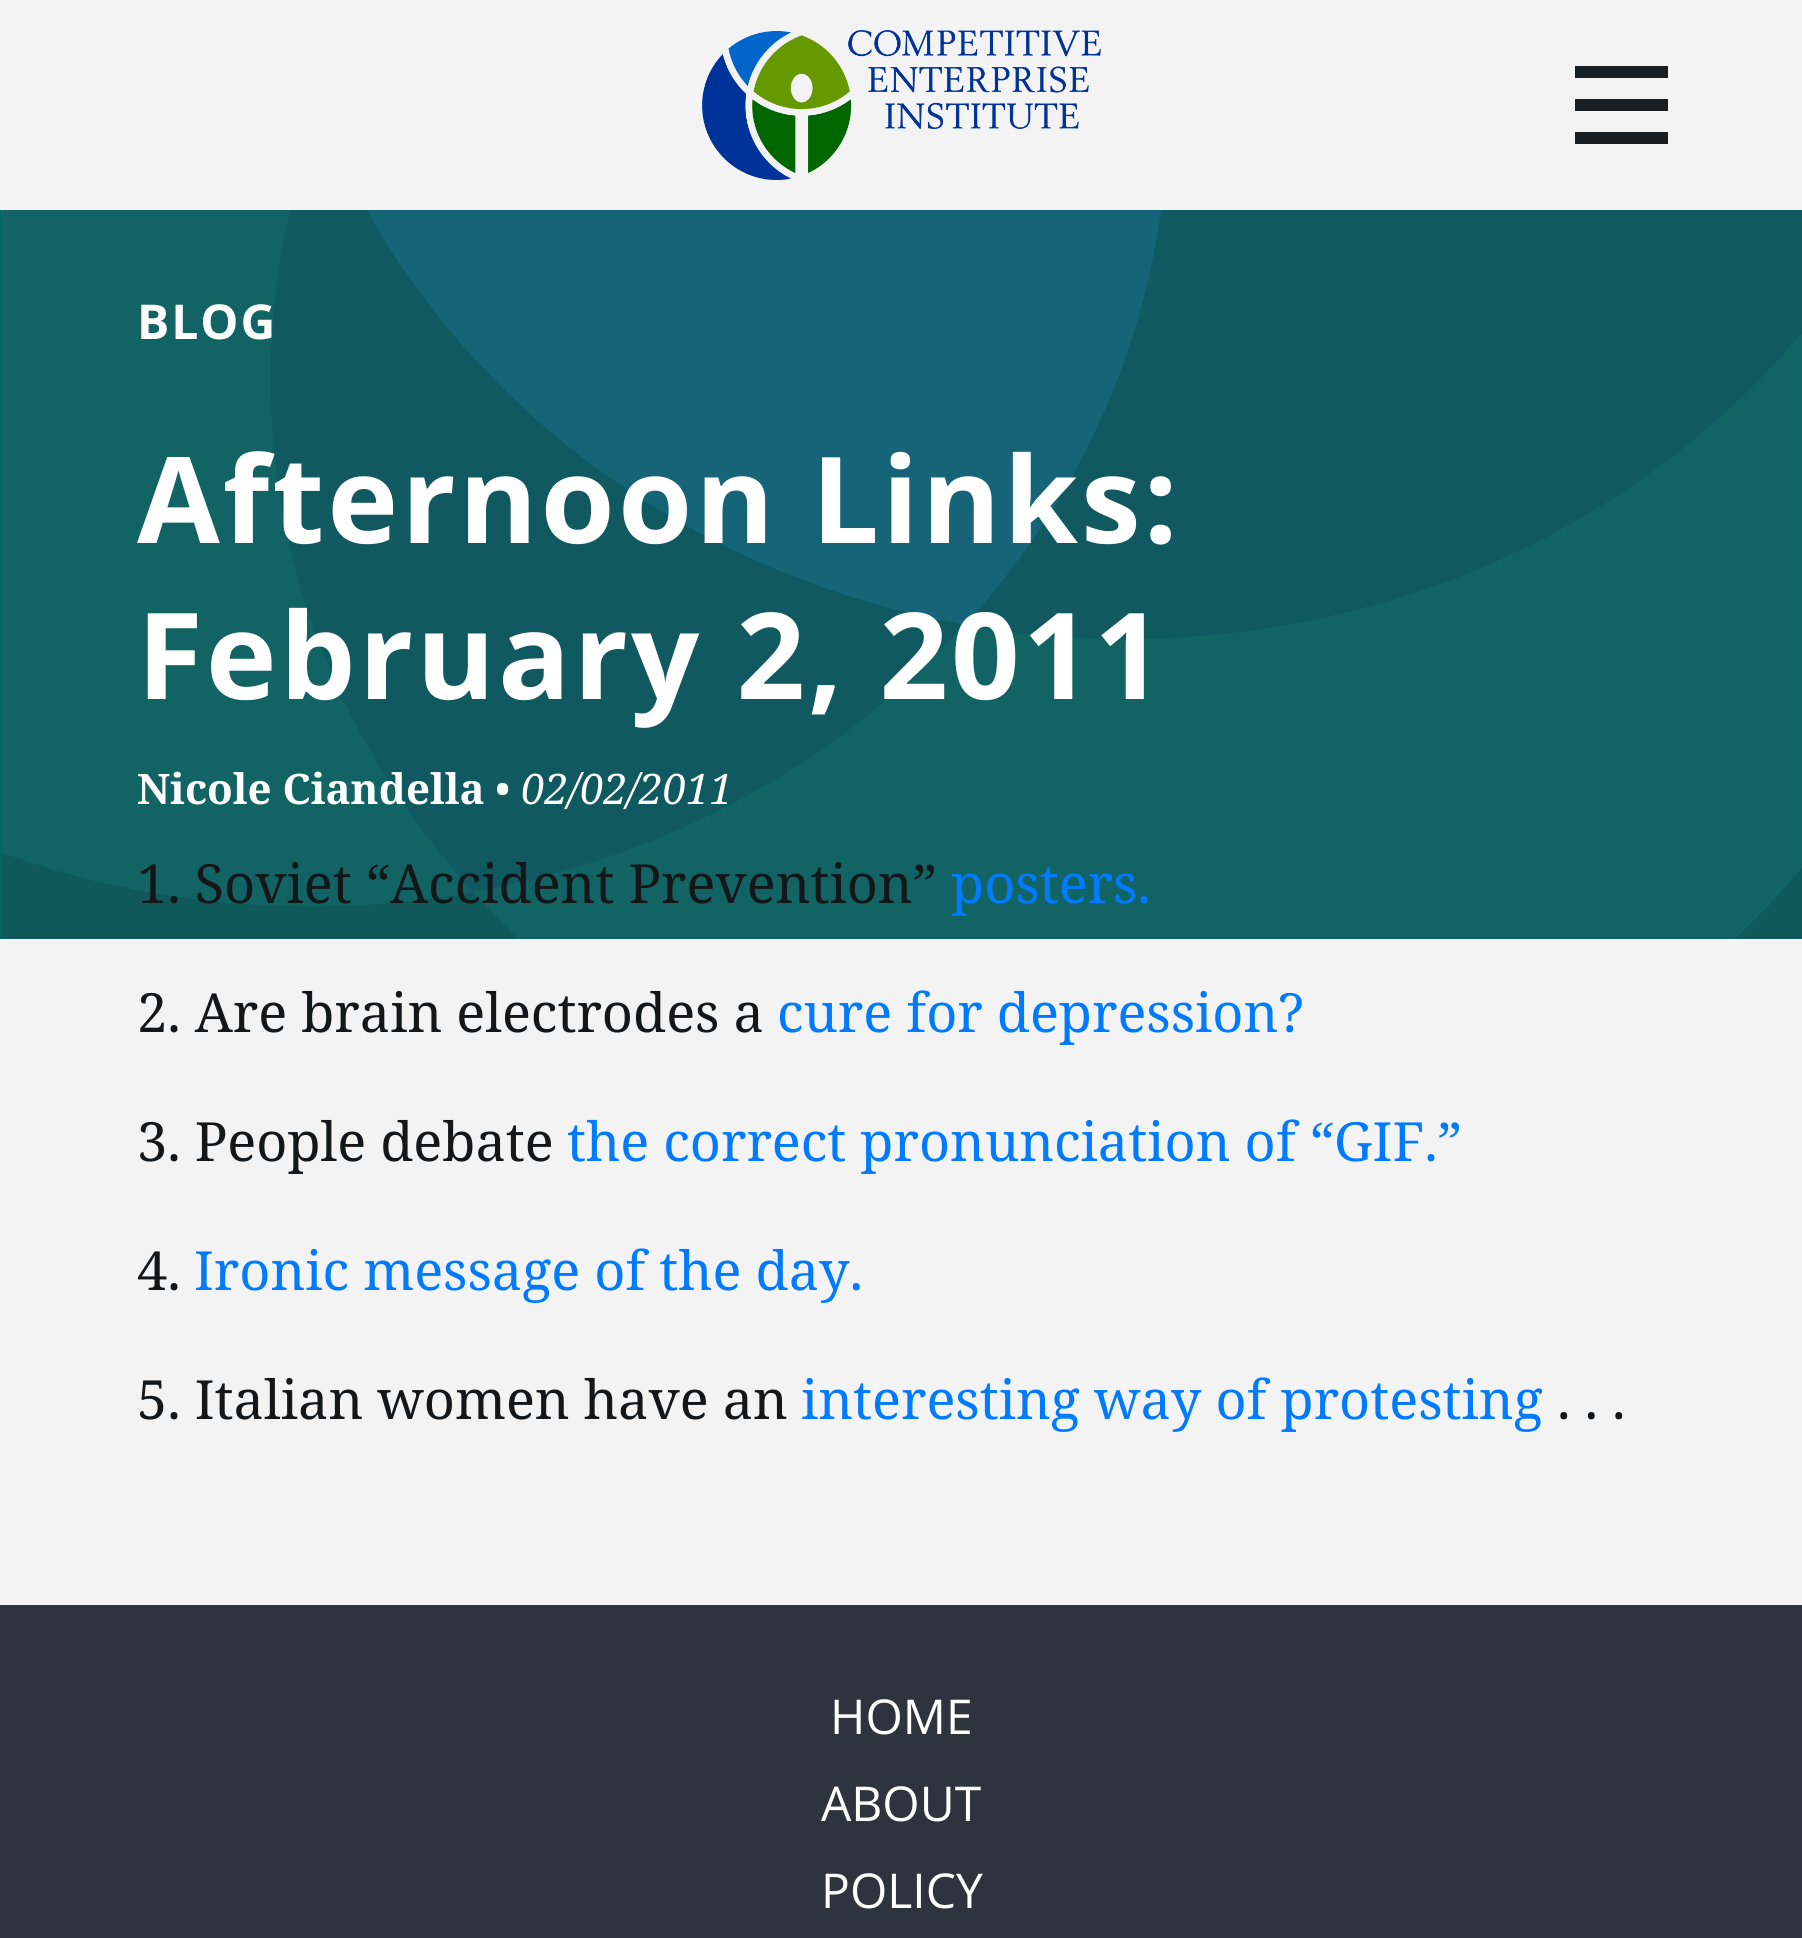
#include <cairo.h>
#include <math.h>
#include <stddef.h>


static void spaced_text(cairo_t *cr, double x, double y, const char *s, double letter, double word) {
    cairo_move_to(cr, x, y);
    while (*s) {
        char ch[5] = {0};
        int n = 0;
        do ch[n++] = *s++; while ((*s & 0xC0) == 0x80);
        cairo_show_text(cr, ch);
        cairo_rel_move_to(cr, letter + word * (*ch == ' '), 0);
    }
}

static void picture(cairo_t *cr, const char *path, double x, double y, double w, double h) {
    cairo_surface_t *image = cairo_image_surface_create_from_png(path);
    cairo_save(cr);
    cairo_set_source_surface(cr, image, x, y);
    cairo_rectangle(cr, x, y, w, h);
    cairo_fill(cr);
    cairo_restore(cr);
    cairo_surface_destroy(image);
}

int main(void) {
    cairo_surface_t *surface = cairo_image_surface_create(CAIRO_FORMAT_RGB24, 1802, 1938);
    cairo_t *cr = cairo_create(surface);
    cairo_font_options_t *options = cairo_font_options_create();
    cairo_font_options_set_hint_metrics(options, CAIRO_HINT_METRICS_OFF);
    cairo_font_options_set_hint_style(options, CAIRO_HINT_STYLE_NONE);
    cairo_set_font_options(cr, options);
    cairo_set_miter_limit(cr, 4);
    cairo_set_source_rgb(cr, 0.953, 0.953, 0.953);
    cairo_paint(cr);
    picture(cr, "img1.png", 702, 30, 399, 150);
    cairo_set_source_rgb(cr, 0.098, 0.118, 0.133);
    cairo_rectangle(cr, 1575, 66, 93, 12);
    cairo_fill(cr);
    cairo_rectangle(cr, 1575, 99, 93, 12);
    cairo_fill(cr);
    cairo_rectangle(cr, 1575, 132, 93, 12);
    cairo_fill(cr);
    cairo_set_source_rgb(cr, 0, 0.4, 0.4);
    cairo_rectangle(cr, 0, 210, 1802, 729);
    cairo_fill(cr);
    picture(cr, "img2.png", 1, 210, 1801, 729);
    cairo_select_font_face(cr, "Open Sans", CAIRO_FONT_SLANT_NORMAL, CAIRO_FONT_WEIGHT_BOLD);
    cairo_set_font_size(cr, 48);
    cairo_set_source_rgb(cr, 1, 1, 1);
    spaced_text(cr, 137, 339, "BLOG", 2, 0);
    cairo_select_font_face(cr, "Noto Serif", CAIRO_FONT_SLANT_NORMAL, CAIRO_FONT_WEIGHT_BOLD);
    cairo_set_font_size(cr, 42);
    cairo_move_to(cr, 137, 804);
    cairo_show_text(cr, "Nicole Ciandella");
    cairo_select_font_face(cr, "Noto Serif", CAIRO_FONT_SLANT_NORMAL, CAIRO_FONT_WEIGHT_NORMAL);
    cairo_move_to(cr, 495, 804);
    cairo_show_text(cr, "•");
    cairo_select_font_face(cr, "Noto Serif", CAIRO_FONT_SLANT_ITALIC, CAIRO_FONT_WEIGHT_NORMAL);
    cairo_move_to(cr, 521, 804);
    cairo_show_text(cr, "02/02/2011");
    cairo_select_font_face(cr, "Open Sans", CAIRO_FONT_SLANT_NORMAL, CAIRO_FONT_WEIGHT_BOLD);
    cairo_set_font_size(cr, 120);
    spaced_text(cr, 137, 543, "Afternoon Links:", 3, 0);
    spaced_text(cr, 137, 699, "February 2, 2011", 3, 0);
    cairo_select_font_face(cr, "Noto Serif", CAIRO_FONT_SLANT_NORMAL, CAIRO_FONT_WEIGHT_NORMAL);
    cairo_set_font_size(cr, 54);
    cairo_set_source_rgb(cr, 0.078, 0.09, 0.102);
    cairo_move_to(cr, 137, 903);
    cairo_show_text(cr, "1. Soviet “Accident Prevention”");
    cairo_set_source_rgb(cr, 0, 0.482, 1);
    cairo_move_to(cr, 951, 903);
    cairo_show_text(cr, "posters.");
    cairo_set_source_rgb(cr, 0.078, 0.09, 0.102);
    cairo_move_to(cr, 137, 1032);
    cairo_show_text(cr, "2. Are brain electrodes a");
    cairo_set_source_rgb(cr, 0, 0.482, 1);
    cairo_move_to(cr, 777, 1032);
    cairo_show_text(cr, "cure for depression?");
    cairo_set_source_rgb(cr, 0.078, 0.09, 0.102);
    cairo_move_to(cr, 137, 1161);
    cairo_show_text(cr, "3. People debate");
    cairo_set_source_rgb(cr, 0, 0.482, 1);
    cairo_move_to(cr, 567, 1161);
    cairo_show_text(cr, "the correct pronunciation of “GIF.”");
    cairo_set_source_rgb(cr, 0.078, 0.09, 0.102);
    cairo_move_to(cr, 137, 1290);
    cairo_show_text(cr, "4.");
    cairo_set_source_rgb(cr, 0, 0.482, 1);
    cairo_move_to(cr, 194, 1290);
    cairo_show_text(cr, "Ironic message of the day.");
    cairo_set_source_rgb(cr, 0.078, 0.09, 0.102);
    cairo_move_to(cr, 137, 1419);
    cairo_show_text(cr, "5. Italian women have an");
    cairo_set_source_rgb(cr, 0, 0.482, 1);
    cairo_move_to(cr, 801, 1419);
    cairo_show_text(cr, "interesting way of protesting");
    cairo_set_source_rgb(cr, 0.078, 0.09, 0.102);
    cairo_move_to(cr, 1557, 1419);
    cairo_show_text(cr, ". . .");
    cairo_set_source_rgb(cr, 0.18, 0.204, 0.243);
    cairo_rectangle(cr, 0, 1605, 1802, 333);
    cairo_fill(cr);
    cairo_select_font_face(cr, "Open Sans", CAIRO_FONT_SLANT_NORMAL, CAIRO_FONT_WEIGHT_NORMAL);
    cairo_set_font_size(cr, 48);
    cairo_set_source_rgb(cr, 1, 1, 1);
    cairo_move_to(cr, 830, 1734);
    cairo_show_text(cr, "HOME");
    cairo_move_to(cr, 821, 1821);
    cairo_show_text(cr, "ABOUT");
    cairo_move_to(cr, 821, 1908);
    cairo_show_text(cr, "POLICY");
    cairo_surface_write_to_png(surface, "page.png");
    cairo_font_options_destroy(options);
    cairo_destroy(cr);
    cairo_surface_destroy(surface);
    return 0;
}
